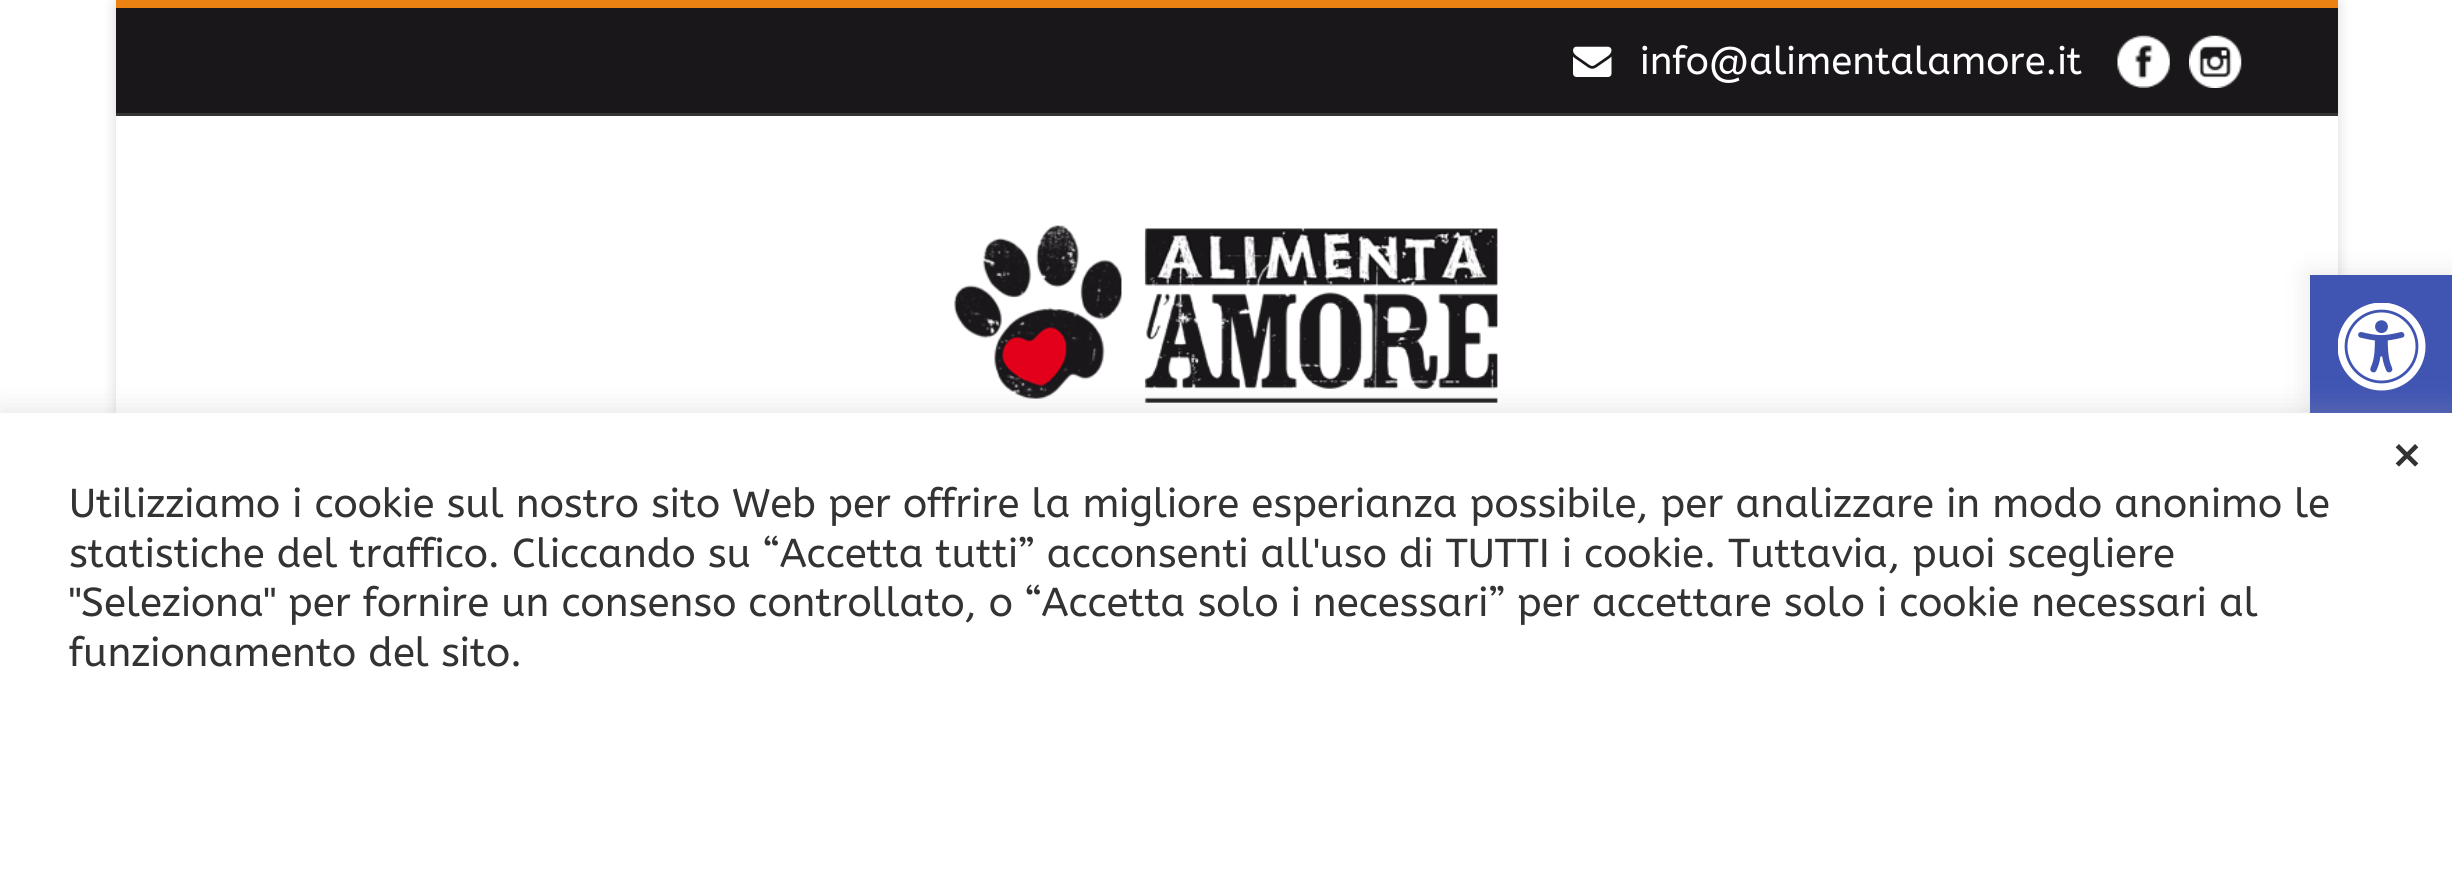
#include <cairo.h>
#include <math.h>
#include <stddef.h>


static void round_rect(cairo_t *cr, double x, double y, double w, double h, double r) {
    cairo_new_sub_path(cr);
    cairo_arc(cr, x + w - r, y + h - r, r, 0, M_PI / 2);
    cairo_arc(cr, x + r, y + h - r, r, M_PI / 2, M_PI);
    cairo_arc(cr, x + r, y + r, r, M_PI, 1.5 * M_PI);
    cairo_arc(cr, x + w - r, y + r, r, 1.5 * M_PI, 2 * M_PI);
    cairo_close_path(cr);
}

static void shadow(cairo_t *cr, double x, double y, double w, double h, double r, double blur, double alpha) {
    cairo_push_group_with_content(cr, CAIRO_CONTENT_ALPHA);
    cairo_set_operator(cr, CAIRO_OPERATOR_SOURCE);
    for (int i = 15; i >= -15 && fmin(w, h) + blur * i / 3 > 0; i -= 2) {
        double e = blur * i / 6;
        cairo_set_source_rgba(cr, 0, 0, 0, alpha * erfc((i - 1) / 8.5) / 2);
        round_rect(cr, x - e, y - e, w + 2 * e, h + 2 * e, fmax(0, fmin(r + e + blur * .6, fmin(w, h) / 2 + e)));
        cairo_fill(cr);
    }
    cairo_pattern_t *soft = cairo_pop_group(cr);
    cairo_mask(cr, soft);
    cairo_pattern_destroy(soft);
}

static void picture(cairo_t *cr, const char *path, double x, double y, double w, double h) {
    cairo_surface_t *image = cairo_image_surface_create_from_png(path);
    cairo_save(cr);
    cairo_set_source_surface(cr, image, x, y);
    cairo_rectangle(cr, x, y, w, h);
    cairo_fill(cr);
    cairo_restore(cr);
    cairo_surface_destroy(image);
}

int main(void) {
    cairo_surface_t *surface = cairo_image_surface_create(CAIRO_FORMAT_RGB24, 2452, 887);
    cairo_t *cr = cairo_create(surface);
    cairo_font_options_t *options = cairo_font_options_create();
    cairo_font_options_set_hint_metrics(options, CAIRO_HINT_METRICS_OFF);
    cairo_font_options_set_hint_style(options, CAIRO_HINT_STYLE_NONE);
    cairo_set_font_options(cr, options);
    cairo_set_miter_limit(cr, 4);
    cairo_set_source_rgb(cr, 1, 1, 1);
    cairo_paint(cr);
    cairo_set_source_rgb(cr, 0, 0, 0);
    shadow(cr, 116, 3, 2222, 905, 0, 7, 0.15);
    cairo_set_source_rgb(cr, 1, 1, 1);
    cairo_rectangle(cr, 116, 116, 2222, 297);
    cairo_fill(cr);
    cairo_set_source_rgb(cr, 0.102, 0.09, 0.106);
    cairo_rectangle(cr, 116, 8, 2222, 105);
    cairo_fill(cr);
    cairo_set_source_rgb(cr, 0.918, 0.51, 0.071);
    cairo_rectangle(cr, 116, 0, 2222, 8);
    cairo_fill(cr);
    cairo_set_source_rgb(cr, 0.208, 0.208, 0.208);
    cairo_rectangle(cr, 116, 113, 2222, 3);
    cairo_fill(cr);
    picture(cr, "img1.png", 1573, 46, 39, 31);
    cairo_select_font_face(cr, "ABeeZee", CAIRO_FONT_SLANT_NORMAL, CAIRO_FONT_WEIGHT_NORMAL);
    cairo_set_font_size(cr, 38.5);
    cairo_set_source_rgb(cr, 1, 1, 1);
    cairo_move_to(cr, 1640, 74);
    cairo_show_text(cr, "info@alimentalamore.it");
    picture(cr, "img2.png", 2117, 35, 53, 53);
    picture(cr, "img3.png", 2189, 35, 53, 53);
    picture(cr, "img4.png", 954, 225, 544, 178);
    cairo_set_source_rgb(cr, 0, 0, 0);
    shadow(cr, 2310, 275, 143, 143, 0, 14, 0.1);
    cairo_set_source_rgb(cr, 0.251, 0.329, 0.698);
    cairo_rectangle(cr, 2310, 275, 142, 138);
    cairo_fill(cr);
    picture(cr, "img5.png", 2338, 303, 88, 88);
    cairo_set_source_rgb(cr, 0.675, 0.671, 0.671);
    shadow(cr, 0, 410, 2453, 476, 0, 14, 0.3);
    cairo_set_source_rgb(cr, 1, 1, 1);
    cairo_rectangle(cr, 0, 413, 2452, 474);
    cairo_fill(cr);
    cairo_set_font_size(cr, 60);
    cairo_set_source_rgb(cr, 0.2, 0.2, 0.2);
    cairo_move_to(cr, 2389, 476);
    cairo_show_text(cr, "×");
    cairo_set_font_size(cr, 40.33);
    cairo_move_to(cr, 69, 517);
    cairo_show_text(cr, "Utilizziamo i cookie sul nostro sito Web per offrire la migliore esperianza possibile, per analizzare in modo anonimo le");
    cairo_move_to(cr, 69, 567);
    cairo_show_text(cr, "statistiche del traffico. Cliccando su “Accetta tutti” acconsenti all'uso di TUTTI i cookie. Tuttavia, puoi scegliere");
    cairo_move_to(cr, 69, 616);
    cairo_show_text(cr, "\"Seleziona\" per fornire un consenso controllato, o “Accetta solo i necessari” per accettare solo i cookie necessari al");
    cairo_move_to(cr, 69, 666);
    cairo_show_text(cr, "funzionamento del sito.");
    cairo_surface_write_to_png(surface, "page.png");
    cairo_font_options_destroy(options);
    cairo_destroy(cr);
    cairo_surface_destroy(surface);
    return 0;
}
